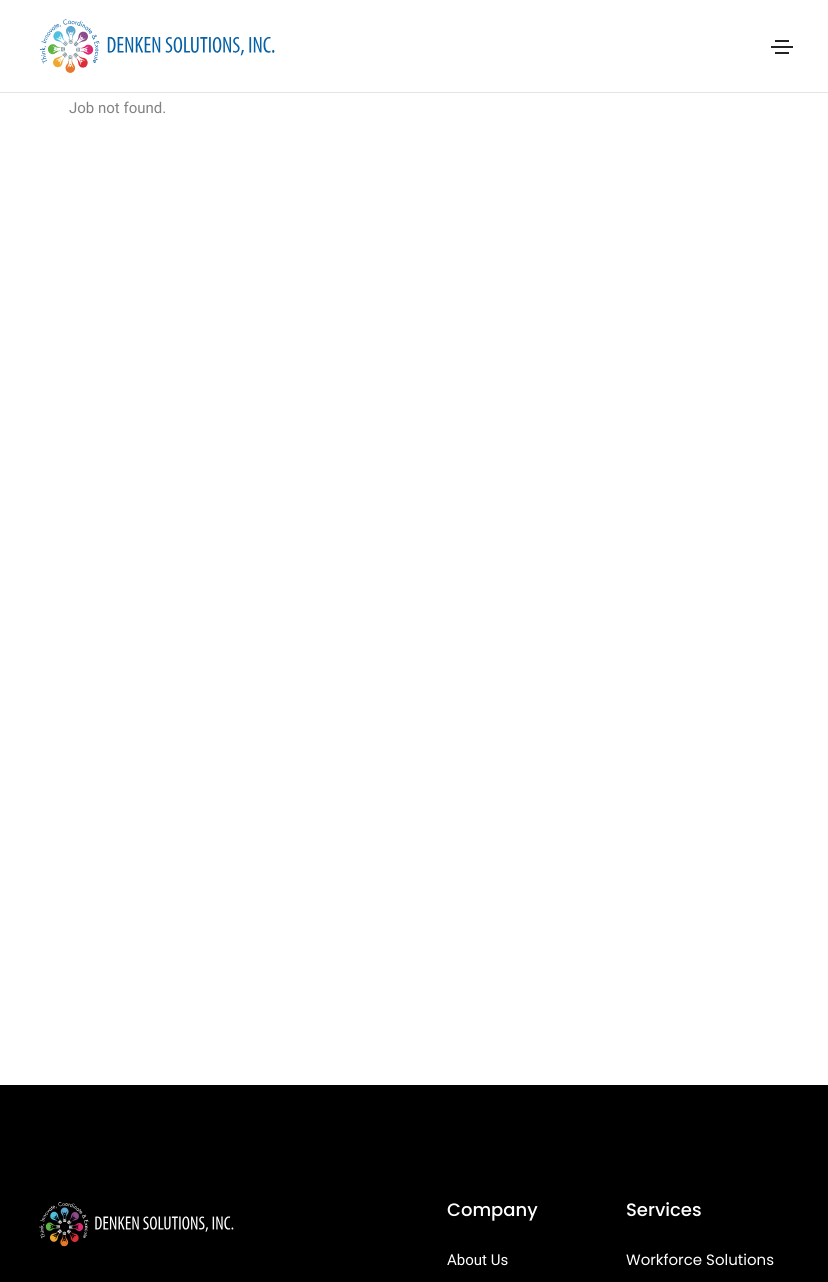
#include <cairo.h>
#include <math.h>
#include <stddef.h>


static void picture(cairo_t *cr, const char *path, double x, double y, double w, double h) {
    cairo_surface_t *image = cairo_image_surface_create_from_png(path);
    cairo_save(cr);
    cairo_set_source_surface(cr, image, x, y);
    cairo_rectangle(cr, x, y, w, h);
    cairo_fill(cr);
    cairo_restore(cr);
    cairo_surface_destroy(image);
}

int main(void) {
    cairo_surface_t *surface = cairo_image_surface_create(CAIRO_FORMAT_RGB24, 828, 1282);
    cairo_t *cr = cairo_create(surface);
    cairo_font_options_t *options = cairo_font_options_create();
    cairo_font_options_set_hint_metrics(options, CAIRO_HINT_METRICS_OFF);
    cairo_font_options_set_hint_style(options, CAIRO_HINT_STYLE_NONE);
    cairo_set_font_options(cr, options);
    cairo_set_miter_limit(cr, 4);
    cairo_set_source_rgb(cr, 1, 1, 1);
    cairo_paint(cr);
    cairo_set_source_rgb(cr, 0.894, 0.894, 0.894);
    cairo_rectangle(cr, 0, 92, 828, 1);
    cairo_fill(cr);
    picture(cr, "img1.png", 39, 19, 236, 54);
    cairo_set_source_rgb(cr, 0.137, 0.137, 0.137);
    cairo_rectangle(cr, 775, 40, 14, 2);
    cairo_fill(cr);
    cairo_rectangle(cr, 771, 46, 22, 2);
    cairo_fill(cr);
    cairo_rectangle(cr, 775, 52, 14, 2);
    cairo_fill(cr);
    cairo_select_font_face(cr, "Roboto", CAIRO_FONT_SLANT_NORMAL, CAIRO_FONT_WEIGHT_NORMAL);
    cairo_set_font_size(cr, 15);
    cairo_set_source_rgb(cr, 0.51, 0.51, 0.51);
    cairo_move_to(cr, 69, 113);
    cairo_show_text(cr, "Job not found.");
    cairo_set_source_rgb(cr, 0, 0, 0);
    cairo_rectangle(cr, 0, 1085, 828, 197);
    cairo_fill(cr);
    picture(cr, "img2.png", 39, 1202, 195, 45);
    cairo_select_font_face(cr, "Poppins Medium", CAIRO_FONT_SLANT_NORMAL, CAIRO_FONT_WEIGHT_NORMAL);
    cairo_set_font_size(cr, 18);
    cairo_set_source_rgb(cr, 1, 1, 1);
    cairo_move_to(cr, 447, 1216);
    cairo_show_text(cr, "Company");
    cairo_select_font_face(cr, "Roboto", CAIRO_FONT_SLANT_NORMAL, CAIRO_FONT_WEIGHT_NORMAL);
    cairo_set_font_size(cr, 15);
    cairo_move_to(cr, 447, 1265);
    cairo_show_text(cr, "About Us");
    cairo_select_font_face(cr, "Poppins Medium", CAIRO_FONT_SLANT_NORMAL, CAIRO_FONT_WEIGHT_NORMAL);
    cairo_set_font_size(cr, 18);
    cairo_move_to(cr, 626, 1216);
    cairo_show_text(cr, "Services");
    cairo_select_font_face(cr, "Poppins", CAIRO_FONT_SLANT_NORMAL, CAIRO_FONT_WEIGHT_NORMAL);
    cairo_set_font_size(cr, 15);
    cairo_move_to(cr, 626, 1265);
    cairo_show_text(cr, "Workforce Solutions");
    cairo_surface_write_to_png(surface, "page.png");
    cairo_font_options_destroy(options);
    cairo_destroy(cr);
    cairo_surface_destroy(surface);
    return 0;
}
